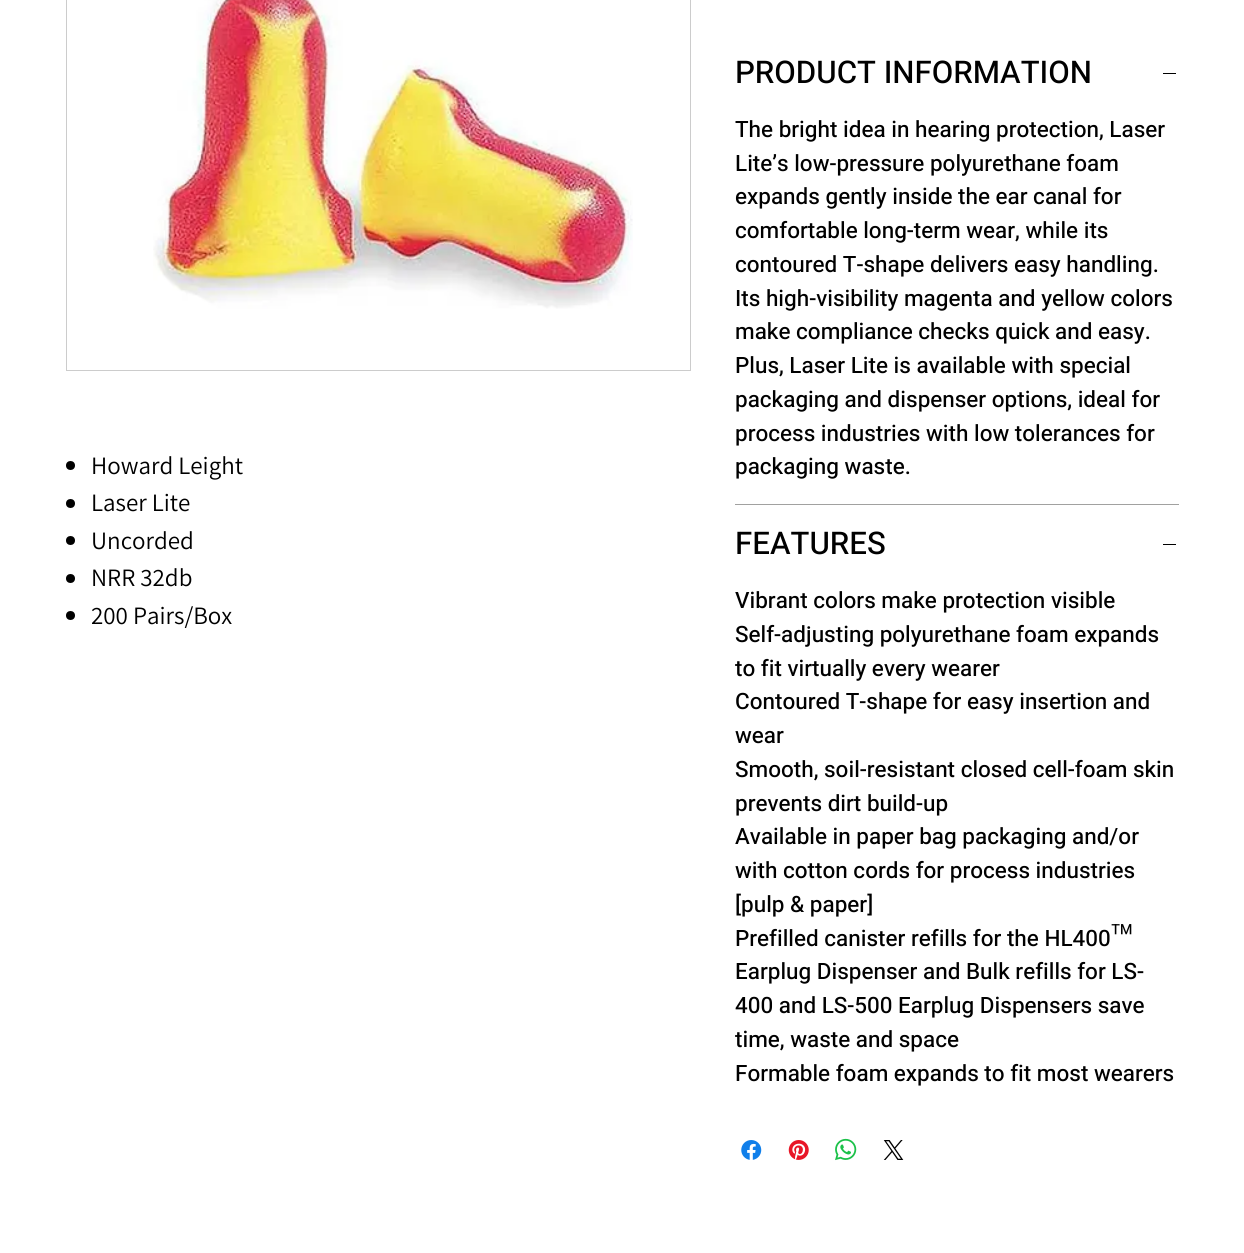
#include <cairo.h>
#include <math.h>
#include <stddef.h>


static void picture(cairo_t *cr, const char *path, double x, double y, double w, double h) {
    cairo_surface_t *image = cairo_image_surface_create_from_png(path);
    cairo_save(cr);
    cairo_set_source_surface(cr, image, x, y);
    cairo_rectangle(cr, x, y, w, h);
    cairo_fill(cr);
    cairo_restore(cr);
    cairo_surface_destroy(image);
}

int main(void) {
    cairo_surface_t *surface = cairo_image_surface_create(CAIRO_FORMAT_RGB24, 1244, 1253);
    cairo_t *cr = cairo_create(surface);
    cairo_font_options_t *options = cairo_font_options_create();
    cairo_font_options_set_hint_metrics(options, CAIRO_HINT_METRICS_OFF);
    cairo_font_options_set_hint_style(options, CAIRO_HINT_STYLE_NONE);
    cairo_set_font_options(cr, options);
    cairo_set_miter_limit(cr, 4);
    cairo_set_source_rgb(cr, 1, 1, 1);
    cairo_paint(cr);
    cairo_rectangle(cr, 66.5, -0.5, 624, 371);
    cairo_set_source_rgb(cr, 0.8, 0.8, 0.8);
    cairo_set_line_width(cr, 1);
    cairo_stroke(cr);
    picture(cr, "img1.png", 153, 0, 480, 309);
    cairo_set_source_rgb(cr, 0, 0, 0);
    cairo_arc(cr, 70.5, 465.5, 4.5, 0, 2 * M_PI);
    cairo_fill(cr);
    cairo_select_font_face(cr, "Assistant", CAIRO_FONT_SLANT_NORMAL, CAIRO_FONT_WEIGHT_NORMAL);
    cairo_set_font_size(cr, 25);
    cairo_move_to(cr, 91, 474);
    cairo_show_text(cr, "Howard Leight");
    cairo_new_path(cr);
    cairo_arc(cr, 70.5, 503.5, 4.5, 0, 2 * M_PI);
    cairo_fill(cr);
    cairo_move_to(cr, 91, 511);
    cairo_show_text(cr, "Laser Lite");
    cairo_new_path(cr);
    cairo_arc(cr, 70.5, 540.5, 4.5, 0, 2 * M_PI);
    cairo_fill(cr);
    cairo_move_to(cr, 91, 549);
    cairo_show_text(cr, "Uncorded");
    cairo_new_path(cr);
    cairo_arc(cr, 70.5, 578.5, 4.5, 0, 2 * M_PI);
    cairo_fill(cr);
    cairo_move_to(cr, 91, 586);
    cairo_show_text(cr, "NRR 32db");
    cairo_new_path(cr);
    cairo_arc(cr, 70.5, 615.5, 4.5, 0, 2 * M_PI);
    cairo_fill(cr);
    cairo_move_to(cr, 91, 624);
    cairo_show_text(cr, "200 Pairs/Box");
    cairo_set_source_rgb(cr, 0.631, 0.631, 0.627);
    cairo_rectangle(cr, 735, 504, 444, 1);
    cairo_fill(cr);
    cairo_select_font_face(cr, "Heebo Medium", CAIRO_FONT_SLANT_NORMAL, CAIRO_FONT_WEIGHT_NORMAL);
    cairo_set_font_size(cr, 31.25);
    cairo_set_source_rgb(cr, 0, 0, 0);
    cairo_move_to(cr, 735, 83);
    cairo_show_text(cr, "PRODUCT INFORMATION");
    cairo_rectangle(cr, 1163, 73, 13, 1);
    cairo_fill(cr);
    cairo_set_font_size(cr, 22.5);
    cairo_move_to(cr, 735, 137);
    cairo_show_text(cr, "The bright idea in hearing protection, Laser");
    cairo_move_to(cr, 735, 171);
    cairo_show_text(cr, "Lite’s low-pressure polyurethane foam");
    cairo_move_to(cr, 735, 204);
    cairo_show_text(cr, "expands gently inside the ear canal for");
    cairo_move_to(cr, 735, 238);
    cairo_show_text(cr, "comfortable long-term wear, while its");
    cairo_move_to(cr, 735, 272);
    cairo_show_text(cr, "contoured T-shape delivers easy handling.");
    cairo_move_to(cr, 735, 306);
    cairo_show_text(cr, "Its high-visibility magenta and yellow colors");
    cairo_move_to(cr, 735, 339);
    cairo_show_text(cr, "make compliance checks quick and easy.");
    cairo_move_to(cr, 735, 373);
    cairo_show_text(cr, "Plus, Laser Lite is available with special");
    cairo_move_to(cr, 735, 407);
    cairo_show_text(cr, "packaging and dispenser options, ideal for");
    cairo_move_to(cr, 735, 441);
    cairo_show_text(cr, "process industries with low tolerances for");
    cairo_move_to(cr, 735, 474);
    cairo_show_text(cr, "packaging waste.");
    cairo_set_font_size(cr, 31.25);
    cairo_move_to(cr, 735, 554);
    cairo_show_text(cr, "FEATURES");
    cairo_rectangle(cr, 1163, 544, 13, 1);
    cairo_fill(cr);
    cairo_set_font_size(cr, 22.5);
    cairo_move_to(cr, 735, 608);
    cairo_show_text(cr, "Vibrant colors make protection visible");
    cairo_move_to(cr, 735, 642);
    cairo_show_text(cr, "Self-adjusting polyurethane foam expands");
    cairo_move_to(cr, 735, 676);
    cairo_show_text(cr, "to fit virtually every wearer");
    cairo_move_to(cr, 735, 709);
    cairo_show_text(cr, "Contoured T-shape for easy insertion and");
    cairo_move_to(cr, 735, 743);
    cairo_show_text(cr, "wear");
    cairo_move_to(cr, 735, 777);
    cairo_show_text(cr, "Smooth, soil-resistant closed cell-foam skin");
    cairo_move_to(cr, 735, 811);
    cairo_show_text(cr, "prevents dirt build-up");
    cairo_move_to(cr, 735, 844);
    cairo_show_text(cr, "Available in paper bag packaging and/or");
    cairo_move_to(cr, 735, 878);
    cairo_show_text(cr, "with cotton cords for process industries");
    cairo_move_to(cr, 735, 912);
    cairo_show_text(cr, "[pulp & paper]");
    cairo_move_to(cr, 735, 946);
    cairo_show_text(cr, "Prefilled canister refills for the HL400™");
    cairo_move_to(cr, 735, 979);
    cairo_show_text(cr, "Earplug Dispenser and Bulk refills for LS-");
    cairo_move_to(cr, 735, 1013);
    cairo_show_text(cr, "400 and LS-500 Earplug Dispensers save");
    cairo_move_to(cr, 735, 1047);
    cairo_show_text(cr, "time, waste and space");
    cairo_move_to(cr, 735, 1081);
    cairo_show_text(cr, "Formable foam expands to fit most wearers");
    picture(cr, "img2.png", 741, 1140, 21, 20);
    picture(cr, "img3.png", 788, 1140, 21, 20);
    picture(cr, "img4.png", 835, 1138, 22, 23);
    picture(cr, "img5.png", 883, 1140, 21, 20);
    cairo_surface_write_to_png(surface, "page.png");
    cairo_font_options_destroy(options);
    cairo_destroy(cr);
    cairo_surface_destroy(surface);
    return 0;
}
